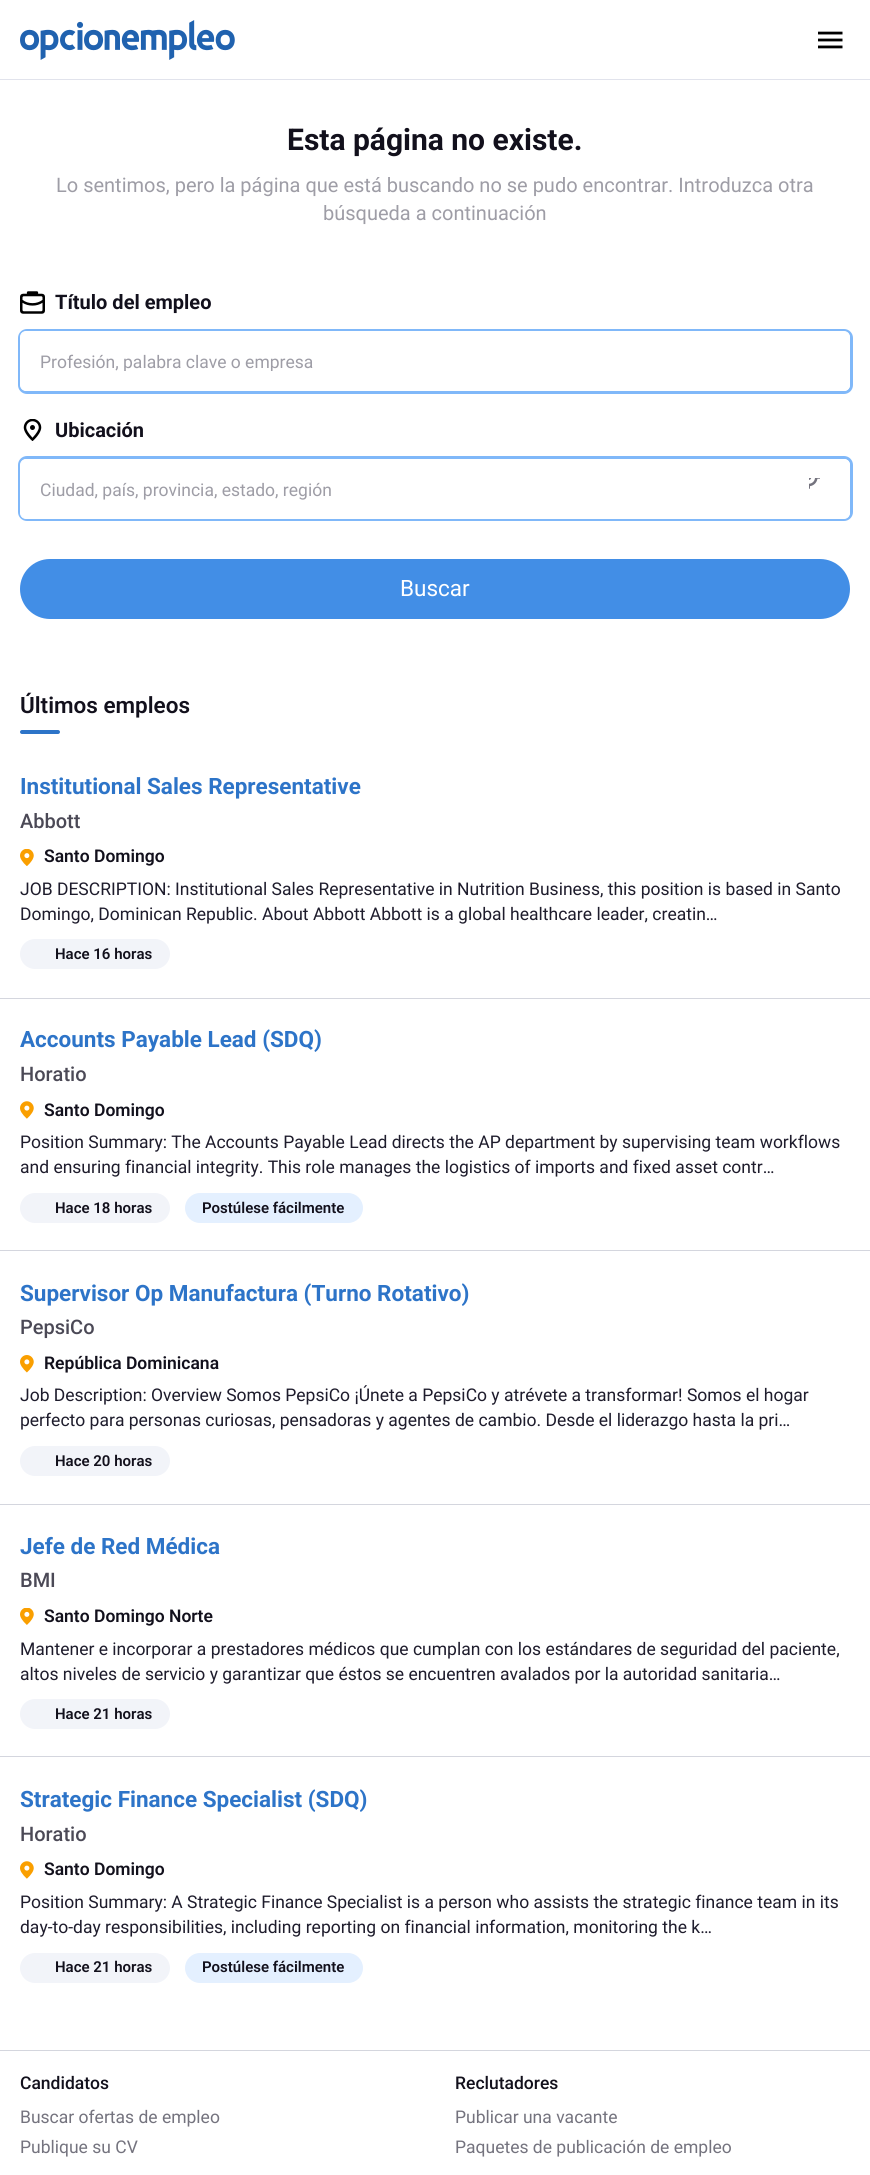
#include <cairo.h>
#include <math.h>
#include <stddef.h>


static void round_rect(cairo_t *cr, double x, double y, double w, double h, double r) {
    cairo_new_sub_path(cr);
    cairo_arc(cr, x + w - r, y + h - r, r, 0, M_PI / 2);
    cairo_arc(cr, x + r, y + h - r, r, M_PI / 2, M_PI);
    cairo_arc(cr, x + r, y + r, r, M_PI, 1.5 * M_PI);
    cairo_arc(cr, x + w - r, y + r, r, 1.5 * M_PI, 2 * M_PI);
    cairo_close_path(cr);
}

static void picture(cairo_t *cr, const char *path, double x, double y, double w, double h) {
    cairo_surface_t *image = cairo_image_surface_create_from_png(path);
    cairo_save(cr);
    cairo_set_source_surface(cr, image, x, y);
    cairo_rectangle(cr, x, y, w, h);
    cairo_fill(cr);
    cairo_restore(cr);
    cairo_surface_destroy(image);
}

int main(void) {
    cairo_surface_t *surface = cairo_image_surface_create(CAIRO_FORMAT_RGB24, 870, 2175);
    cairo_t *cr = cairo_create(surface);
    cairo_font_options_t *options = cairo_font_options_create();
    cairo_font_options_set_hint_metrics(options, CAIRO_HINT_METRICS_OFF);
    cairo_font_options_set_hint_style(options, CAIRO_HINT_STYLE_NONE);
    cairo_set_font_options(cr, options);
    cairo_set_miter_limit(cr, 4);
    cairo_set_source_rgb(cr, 1, 1, 1);
    cairo_paint(cr);
    cairo_set_source_rgb(cr, 0.882, 0.89, 0.922);
    cairo_rectangle(cr, 0, 79, 870, 1);
    cairo_fill(cr);
    picture(cr, "img1.png", 20, 20, 215, 40);
    picture(cr, "img2.png", 818, 31, 25, 18);
    cairo_select_font_face(cr, "Roboto", CAIRO_FONT_SLANT_NORMAL, CAIRO_FONT_WEIGHT_BOLD);
    cairo_set_font_size(cr, 30);
    cairo_set_source_rgb(cr, 0.071, 0.063, 0.11);
    cairo_move_to(cr, 287, 150);
    cairo_show_text(cr, "Esta página no existe.");
    cairo_select_font_face(cr, "Roboto", CAIRO_FONT_SLANT_NORMAL, CAIRO_FONT_WEIGHT_NORMAL);
    cairo_set_font_size(cr, 20);
    cairo_set_source_rgb(cr, 0.62, 0.616, 0.651);
    cairo_move_to(cr, 56, 192);
    cairo_show_text(cr, "Lo sentimos, pero la página que está buscando no se pudo encontrar. Introduzca otra");
    cairo_move_to(cr, 323, 220);
    cairo_show_text(cr, "búsqueda a continuación");
    picture(cr, "img3.png", 20, 291, 25, 23);
    cairo_select_font_face(cr, "Roboto", CAIRO_FONT_SLANT_NORMAL, CAIRO_FONT_WEIGHT_BOLD);
    cairo_set_source_rgb(cr, 0.071, 0.063, 0.11);
    cairo_move_to(cr, 55, 309);
    cairo_show_text(cr, "Título del empleo");
    round_rect(cr, 19.5, 330.5, 832, 62, 7.5);
    cairo_set_source_rgb(cr, 0.502, 0.722, 0.973);
    cairo_set_line_width(cr, 3);
    cairo_stroke(cr);
    cairo_set_source_rgb(cr, 1, 1, 1);
    round_rect(cr, 20.5, 331.5, 829, 59, 5.5);
    cairo_fill_preserve(cr);
    cairo_set_line_width(cr, 1);
    cairo_stroke(cr);
    cairo_save(cr);
    cairo_rectangle(cr, 40, 351, 750, 20);
    cairo_clip(cr);
    cairo_select_font_face(cr, "Roboto", CAIRO_FONT_SLANT_NORMAL, CAIRO_FONT_WEIGHT_NORMAL);
    cairo_set_font_size(cr, 17.5);
    cairo_set_source_rgb(cr, 0.62, 0.616, 0.651);
    cairo_move_to(cr, 40, 368);
    cairo_show_text(cr, "Profesión, palabra clave o empresa");
    cairo_restore(cr);
    picture(cr, "img4.png", 23, 419, 19, 22);
    cairo_set_source_rgb(cr, 0.071, 0.063, 0.11);
    cairo_move_to(cr, 55, 437);
    cairo_show_text(cr, "Ubicación");
    round_rect(cr, 19.5, 457.5, 832, 62, 7.5);
    cairo_set_source_rgb(cr, 0.502, 0.722, 0.973);
    cairo_set_line_width(cr, 3);
    cairo_stroke(cr);
    cairo_set_source_rgb(cr, 1, 1, 1);
    round_rect(cr, 20.5, 459.5, 829, 59, 5.5);
    cairo_fill_preserve(cr);
    cairo_set_line_width(cr, 1);
    cairo_stroke(cr);
    cairo_select_font_face(cr, "Roboto", CAIRO_FONT_SLANT_NORMAL, CAIRO_FONT_WEIGHT_NORMAL);
    cairo_set_font_size(cr, 17.5);
    cairo_set_source_rgb(cr, 0.62, 0.616, 0.651);
    cairo_move_to(cr, 40, 496);
    cairo_show_text(cr, "Ciudad, país, provincia, estado, región");
    picture(cr, "img5.png", 809, 478, 11, 11);
    cairo_set_source_rgb(cr, 0.259, 0.557, 0.902);
    round_rect(cr, 20, 559, 830, 60, 30);
    cairo_fill(cr);
    cairo_set_font_size(cr, 22.5);
    cairo_set_source_rgb(cr, 1, 1, 1);
    cairo_move_to(cr, 400, 596);
    cairo_show_text(cr, "Buscar");
    cairo_select_font_face(cr, "Roboto SemiBold", CAIRO_FONT_SLANT_NORMAL, CAIRO_FONT_WEIGHT_NORMAL);
    cairo_set_source_rgb(cr, 0.071, 0.063, 0.11);
    cairo_move_to(cr, 20, 713);
    cairo_show_text(cr, "Últimos empleos");
    cairo_set_source_rgb(cr, 0.176, 0.455, 0.784);
    round_rect(cr, 20, 730, 40, 4, 2);
    cairo_fill(cr);
    cairo_set_source_rgb(cr, 0.831, 0.839, 0.871);
    cairo_rectangle(cr, 0, 998, 870, 1);
    cairo_fill(cr);
    cairo_select_font_face(cr, "Roboto", CAIRO_FONT_SLANT_NORMAL, CAIRO_FONT_WEIGHT_BOLD);
    cairo_set_source_rgb(cr, 0.176, 0.455, 0.784);
    cairo_move_to(cr, 20, 794);
    cairo_show_text(cr, "Institutional Sales Representative");
    cairo_select_font_face(cr, "Roboto Medium", CAIRO_FONT_SLANT_NORMAL, CAIRO_FONT_WEIGHT_NORMAL);
    cairo_set_font_size(cr, 20);
    cairo_set_source_rgb(cr, 0.294, 0.286, 0.337);
    cairo_move_to(cr, 20, 828);
    cairo_show_text(cr, "Abbott");
    picture(cr, "img6.png", 20, 849, 14, 17);
    cairo_select_font_face(cr, "Roboto SemiBold", CAIRO_FONT_SLANT_NORMAL, CAIRO_FONT_WEIGHT_NORMAL);
    cairo_set_font_size(cr, 17.5);
    cairo_set_source_rgb(cr, 0.071, 0.063, 0.11);
    cairo_move_to(cr, 44, 862);
    cairo_show_text(cr, "Santo Domingo");
    cairo_select_font_face(cr, "Roboto", CAIRO_FONT_SLANT_NORMAL, CAIRO_FONT_WEIGHT_NORMAL);
    cairo_set_source_rgb(cr, 0.118, 0.11, 0.173);
    cairo_move_to(cr, 20, 895);
    cairo_show_text(cr, "JOB DESCRIPTION: Institutional Sales Representative in Nutrition Business, this position is based in Santo");
    cairo_move_to(cr, 20, 920);
    cairo_show_text(cr, "Domingo, Dominican Republic. About Abbott Abbott is a global healthcare leader, creatin…");
    cairo_set_source_rgb(cr, 0.949, 0.957, 0.973);
    round_rect(cr, 20, 939, 150, 30, 15);
    cairo_fill(cr);
    cairo_select_font_face(cr, "Roboto SemiBold", CAIRO_FONT_SLANT_NORMAL, CAIRO_FONT_WEIGHT_NORMAL);
    cairo_set_font_size(cr, 15);
    cairo_set_source_rgb(cr, 0.071, 0.063, 0.11);
    cairo_move_to(cr, 55, 959);
    cairo_show_text(cr, "Hace 16 horas");
    cairo_set_source_rgb(cr, 0.831, 0.839, 0.871);
    cairo_rectangle(cr, 0, 1250, 870, 1);
    cairo_fill(cr);
    cairo_select_font_face(cr, "Roboto", CAIRO_FONT_SLANT_NORMAL, CAIRO_FONT_WEIGHT_BOLD);
    cairo_set_font_size(cr, 22.5);
    cairo_set_source_rgb(cr, 0.176, 0.455, 0.784);
    cairo_move_to(cr, 20, 1047);
    cairo_show_text(cr, "Accounts Payable Lead (SDQ)");
    cairo_select_font_face(cr, "Roboto Medium", CAIRO_FONT_SLANT_NORMAL, CAIRO_FONT_WEIGHT_NORMAL);
    cairo_set_font_size(cr, 20);
    cairo_set_source_rgb(cr, 0.294, 0.286, 0.337);
    cairo_move_to(cr, 20, 1081);
    cairo_show_text(cr, "Horatio");
    picture(cr, "img7.png", 20, 1101, 14, 18);
    cairo_select_font_face(cr, "Roboto SemiBold", CAIRO_FONT_SLANT_NORMAL, CAIRO_FONT_WEIGHT_NORMAL);
    cairo_set_font_size(cr, 17.5);
    cairo_set_source_rgb(cr, 0.071, 0.063, 0.11);
    cairo_move_to(cr, 44, 1116);
    cairo_show_text(cr, "Santo Domingo");
    cairo_select_font_face(cr, "Roboto", CAIRO_FONT_SLANT_NORMAL, CAIRO_FONT_WEIGHT_NORMAL);
    cairo_set_source_rgb(cr, 0.118, 0.11, 0.173);
    cairo_move_to(cr, 20, 1148);
    cairo_show_text(cr, "Position Summary: The Accounts Payable Lead directs the AP department by supervising team workflows");
    cairo_move_to(cr, 20, 1173);
    cairo_show_text(cr, "and ensuring financial integrity. This role manages the logistics of imports and fixed asset contr…");
    cairo_set_source_rgb(cr, 0.949, 0.957, 0.973);
    round_rect(cr, 20, 1193, 150, 30, 15);
    cairo_fill(cr);
    cairo_select_font_face(cr, "Roboto SemiBold", CAIRO_FONT_SLANT_NORMAL, CAIRO_FONT_WEIGHT_NORMAL);
    cairo_set_font_size(cr, 15);
    cairo_set_source_rgb(cr, 0.071, 0.063, 0.11);
    cairo_move_to(cr, 55, 1213);
    cairo_show_text(cr, "Hace 18 horas");
    cairo_set_source_rgb(cr, 0.894, 0.941, 1);
    round_rect(cr, 185, 1193, 178, 30, 15);
    cairo_fill(cr);
    cairo_set_source_rgb(cr, 0.071, 0.063, 0.11);
    cairo_move_to(cr, 202, 1213);
    cairo_show_text(cr, "Postúlese fácilmente");
    cairo_set_source_rgb(cr, 0.831, 0.839, 0.871);
    cairo_rectangle(cr, 0, 1504, 870, 1);
    cairo_fill(cr);
    cairo_select_font_face(cr, "Roboto", CAIRO_FONT_SLANT_NORMAL, CAIRO_FONT_WEIGHT_BOLD);
    cairo_set_font_size(cr, 22.5);
    cairo_set_source_rgb(cr, 0.176, 0.455, 0.784);
    cairo_move_to(cr, 20, 1301);
    cairo_show_text(cr, "Supervisor Op Manufactura (Turno Rotativo)");
    cairo_select_font_face(cr, "Roboto Medium", CAIRO_FONT_SLANT_NORMAL, CAIRO_FONT_WEIGHT_NORMAL);
    cairo_set_font_size(cr, 20);
    cairo_set_source_rgb(cr, 0.294, 0.286, 0.337);
    cairo_move_to(cr, 20, 1334);
    cairo_show_text(cr, "PepsiCo");
    picture(cr, "img8.png", 20, 1355, 14, 18);
    cairo_select_font_face(cr, "Roboto SemiBold", CAIRO_FONT_SLANT_NORMAL, CAIRO_FONT_WEIGHT_NORMAL);
    cairo_set_font_size(cr, 17.5);
    cairo_set_source_rgb(cr, 0.071, 0.063, 0.11);
    cairo_move_to(cr, 44, 1369);
    cairo_show_text(cr, "República Dominicana");
    cairo_select_font_face(cr, "Roboto", CAIRO_FONT_SLANT_NORMAL, CAIRO_FONT_WEIGHT_NORMAL);
    cairo_set_source_rgb(cr, 0.118, 0.11, 0.173);
    cairo_move_to(cr, 20, 1401);
    cairo_show_text(cr, "Job Description: Overview Somos PepsiCo ¡Únete a PepsiCo y atrévete a transformar! Somos el hogar");
    cairo_move_to(cr, 20, 1426);
    cairo_show_text(cr, "perfecto para personas curiosas, pensadoras y agentes de cambio. Desde el liderazgo hasta la pri…");
    cairo_set_source_rgb(cr, 0.949, 0.957, 0.973);
    round_rect(cr, 20, 1446, 150, 30, 15);
    cairo_fill(cr);
    cairo_select_font_face(cr, "Roboto SemiBold", CAIRO_FONT_SLANT_NORMAL, CAIRO_FONT_WEIGHT_NORMAL);
    cairo_set_font_size(cr, 15);
    cairo_set_source_rgb(cr, 0.071, 0.063, 0.11);
    cairo_move_to(cr, 55, 1466);
    cairo_show_text(cr, "Hace 20 horas");
    cairo_set_source_rgb(cr, 0.831, 0.839, 0.871);
    cairo_rectangle(cr, 0, 1756, 870, 1);
    cairo_fill(cr);
    cairo_select_font_face(cr, "Roboto", CAIRO_FONT_SLANT_NORMAL, CAIRO_FONT_WEIGHT_BOLD);
    cairo_set_font_size(cr, 22.5);
    cairo_set_source_rgb(cr, 0.176, 0.455, 0.784);
    cairo_move_to(cr, 20, 1554);
    cairo_show_text(cr, "Jefe de Red Médica");
    cairo_select_font_face(cr, "Roboto Medium", CAIRO_FONT_SLANT_NORMAL, CAIRO_FONT_WEIGHT_NORMAL);
    cairo_set_font_size(cr, 20);
    cairo_set_source_rgb(cr, 0.294, 0.286, 0.337);
    cairo_move_to(cr, 20, 1587);
    cairo_show_text(cr, "BMI");
    picture(cr, "img9.png", 20, 1608, 14, 17);
    cairo_select_font_face(cr, "Roboto SemiBold", CAIRO_FONT_SLANT_NORMAL, CAIRO_FONT_WEIGHT_NORMAL);
    cairo_set_font_size(cr, 17.5);
    cairo_set_source_rgb(cr, 0.071, 0.063, 0.11);
    cairo_move_to(cr, 44, 1622);
    cairo_show_text(cr, "Santo Domingo Norte");
    cairo_select_font_face(cr, "Roboto", CAIRO_FONT_SLANT_NORMAL, CAIRO_FONT_WEIGHT_NORMAL);
    cairo_set_source_rgb(cr, 0.118, 0.11, 0.173);
    cairo_move_to(cr, 20, 1655);
    cairo_show_text(cr, "Mantener e incorporar a prestadores médicos que cumplan con los estándares de seguridad del paciente,");
    cairo_move_to(cr, 20, 1680);
    cairo_show_text(cr, "altos niveles de servicio y garantizar que éstos se encuentren avalados por la autoridad sanitaria…");
    cairo_set_source_rgb(cr, 0.949, 0.957, 0.973);
    round_rect(cr, 20, 1699, 150, 30, 15);
    cairo_fill(cr);
    cairo_select_font_face(cr, "Roboto SemiBold", CAIRO_FONT_SLANT_NORMAL, CAIRO_FONT_WEIGHT_NORMAL);
    cairo_set_font_size(cr, 15);
    cairo_set_source_rgb(cr, 0.071, 0.063, 0.11);
    cairo_move_to(cr, 55, 1719);
    cairo_show_text(cr, "Hace 21 horas");
    cairo_select_font_face(cr, "Roboto", CAIRO_FONT_SLANT_NORMAL, CAIRO_FONT_WEIGHT_BOLD);
    cairo_set_font_size(cr, 22.5);
    cairo_set_source_rgb(cr, 0.176, 0.455, 0.784);
    cairo_move_to(cr, 20, 1807);
    cairo_show_text(cr, "Strategic Finance Specialist (SDQ)");
    cairo_select_font_face(cr, "Roboto Medium", CAIRO_FONT_SLANT_NORMAL, CAIRO_FONT_WEIGHT_NORMAL);
    cairo_set_font_size(cr, 20);
    cairo_set_source_rgb(cr, 0.294, 0.286, 0.337);
    cairo_move_to(cr, 20, 1841);
    cairo_show_text(cr, "Horatio");
    picture(cr, "img7.png", 20, 1861, 14, 18);
    cairo_select_font_face(cr, "Roboto SemiBold", CAIRO_FONT_SLANT_NORMAL, CAIRO_FONT_WEIGHT_NORMAL);
    cairo_set_font_size(cr, 17.5);
    cairo_set_source_rgb(cr, 0.071, 0.063, 0.11);
    cairo_move_to(cr, 44, 1875);
    cairo_show_text(cr, "Santo Domingo");
    cairo_select_font_face(cr, "Roboto", CAIRO_FONT_SLANT_NORMAL, CAIRO_FONT_WEIGHT_NORMAL);
    cairo_set_source_rgb(cr, 0.118, 0.11, 0.173);
    cairo_move_to(cr, 20, 1908);
    cairo_show_text(cr, "Position Summary: A Strategic Finance Specialist is a person who assists the strategic finance team in its");
    cairo_move_to(cr, 20, 1933);
    cairo_show_text(cr, "day-to-day responsibilities, including reporting on financial information, monitoring the k…");
    cairo_set_source_rgb(cr, 0.949, 0.957, 0.973);
    round_rect(cr, 20, 1953, 150, 30, 15);
    cairo_fill(cr);
    cairo_select_font_face(cr, "Roboto SemiBold", CAIRO_FONT_SLANT_NORMAL, CAIRO_FONT_WEIGHT_NORMAL);
    cairo_set_font_size(cr, 15);
    cairo_set_source_rgb(cr, 0.071, 0.063, 0.11);
    cairo_move_to(cr, 55, 1972);
    cairo_show_text(cr, "Hace 21 horas");
    cairo_set_source_rgb(cr, 0.894, 0.941, 1);
    round_rect(cr, 185, 1953, 178, 30, 15);
    cairo_fill(cr);
    cairo_set_source_rgb(cr, 0.071, 0.063, 0.11);
    cairo_move_to(cr, 202, 1972);
    cairo_show_text(cr, "Postúlese fácilmente");
    cairo_set_source_rgb(cr, 0.831, 0.839, 0.871);
    cairo_rectangle(cr, 0, 2050, 870, 1);
    cairo_fill(cr);
    cairo_select_font_face(cr, "Roboto Medium", CAIRO_FONT_SLANT_NORMAL, CAIRO_FONT_WEIGHT_NORMAL);
    cairo_set_font_size(cr, 17.5);
    cairo_set_source_rgb(cr, 0.071, 0.063, 0.11);
    cairo_move_to(cr, 20, 2089);
    cairo_show_text(cr, "Candidatos");
    cairo_select_font_face(cr, "Roboto", CAIRO_FONT_SLANT_NORMAL, CAIRO_FONT_WEIGHT_NORMAL);
    cairo_set_source_rgb(cr, 0.455, 0.451, 0.494);
    cairo_move_to(cr, 20, 2123);
    cairo_show_text(cr, "Buscar ofertas de empleo");
    cairo_move_to(cr, 20, 2153);
    cairo_show_text(cr, "Publique su CV");
    cairo_select_font_face(cr, "Roboto Medium", CAIRO_FONT_SLANT_NORMAL, CAIRO_FONT_WEIGHT_NORMAL);
    cairo_set_source_rgb(cr, 0.071, 0.063, 0.11);
    cairo_move_to(cr, 455, 2089);
    cairo_show_text(cr, "Reclutadores");
    cairo_select_font_face(cr, "Roboto", CAIRO_FONT_SLANT_NORMAL, CAIRO_FONT_WEIGHT_NORMAL);
    cairo_set_source_rgb(cr, 0.455, 0.451, 0.494);
    cairo_move_to(cr, 455, 2123);
    cairo_show_text(cr, "Publicar una vacante");
    cairo_move_to(cr, 455, 2153);
    cairo_show_text(cr, "Paquetes de publicación de empleo");
    cairo_surface_write_to_png(surface, "page.png");
    cairo_font_options_destroy(options);
    cairo_destroy(cr);
    cairo_surface_destroy(surface);
    return 0;
}
